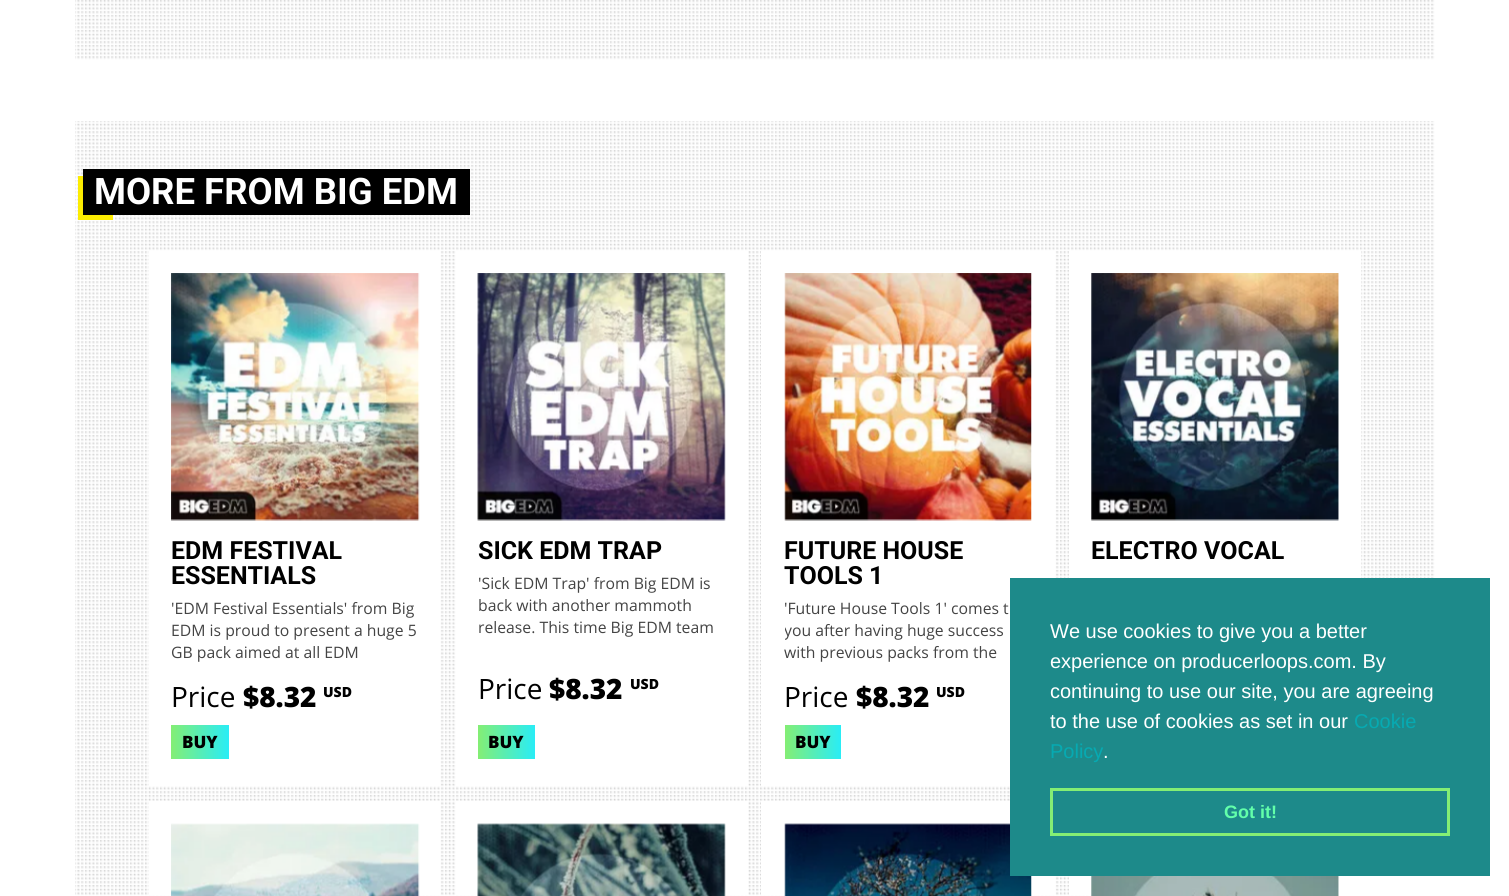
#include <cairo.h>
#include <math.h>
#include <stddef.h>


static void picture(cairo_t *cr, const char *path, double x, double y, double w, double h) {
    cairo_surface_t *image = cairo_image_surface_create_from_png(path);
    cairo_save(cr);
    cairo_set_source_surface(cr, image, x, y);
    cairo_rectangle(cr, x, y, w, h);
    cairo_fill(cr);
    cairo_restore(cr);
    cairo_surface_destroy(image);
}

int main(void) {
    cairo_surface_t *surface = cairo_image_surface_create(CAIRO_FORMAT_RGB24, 1509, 896);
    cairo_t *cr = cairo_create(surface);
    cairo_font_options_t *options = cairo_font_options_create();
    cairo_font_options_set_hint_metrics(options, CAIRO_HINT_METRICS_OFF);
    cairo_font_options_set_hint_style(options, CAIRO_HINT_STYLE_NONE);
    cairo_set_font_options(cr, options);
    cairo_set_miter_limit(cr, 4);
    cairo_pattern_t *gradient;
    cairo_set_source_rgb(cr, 1, 1, 1);
    cairo_paint(cr);
    cairo_set_source_rgb(cr, 0.824, 0.824, 0.824);
    cairo_rectangle(cr, 75, 0, 1360, 60);
    cairo_fill(cr);
    picture(cr, "img1.png", 75, 0, 1360, 60);
    cairo_rectangle(cr, 75, 121, 1360, 775);
    cairo_fill(cr);
    picture(cr, "img2.png", 75, 121, 1360, 775);
    cairo_set_source_rgb(cr, 0.988, 0.922, 0.004);
    cairo_rectangle(cr, 78, 176, 35, 44);
    cairo_fill(cr);
    cairo_set_source_rgb(cr, 0, 0, 0);
    cairo_rectangle(cr, 83, 169, 387, 46);
    cairo_fill(cr);
    cairo_select_font_face(cr, "Roboto", CAIRO_FONT_SLANT_NORMAL, CAIRO_FONT_WEIGHT_BOLD);
    cairo_set_font_size(cr, 36.5);
    cairo_set_source_rgb(cr, 1, 1, 1);
    cairo_move_to(cr, 94, 204);
    cairo_show_text(cr, "MORE FROM BIG EDM");
    cairo_rectangle(cr, 149, 251, 291, 535);
    cairo_fill(cr);
    picture(cr, "img3.png", 171, 273, 249, 248);
    cairo_set_font_size(cr, 25);
    cairo_set_source_rgb(cr, 0, 0, 0);
    cairo_move_to(cr, 171, 559);
    cairo_show_text(cr, "EDM FESTIVAL");
    cairo_move_to(cr, 171, 584);
    cairo_show_text(cr, "ESSENTIALS");
    cairo_select_font_face(cr, "Open Sans", CAIRO_FONT_SLANT_NORMAL, CAIRO_FONT_WEIGHT_NORMAL);
    cairo_set_font_size(cr, 15.75);
    cairo_set_source_rgb(cr, 0.267, 0.267, 0.267);
    cairo_move_to(cr, 171, 614);
    cairo_show_text(cr, "'EDM Festival Essentials' from Big");
    cairo_move_to(cr, 171, 636);
    cairo_show_text(cr, "EDM is proud to present a huge 5");
    cairo_move_to(cr, 171, 658);
    cairo_show_text(cr, "GB pack aimed at all EDM");
    cairo_set_font_size(cr, 28);
    cairo_set_source_rgb(cr, 0, 0, 0);
    cairo_move_to(cr, 171, 707);
    cairo_show_text(cr, "Price");
    cairo_select_font_face(cr, "Open Sans ExtraBold", CAIRO_FONT_SLANT_NORMAL, CAIRO_FONT_WEIGHT_NORMAL);
    cairo_move_to(cr, 243, 707);
    cairo_show_text(cr, "$8.32");
    cairo_set_font_size(cr, 14);
    cairo_move_to(cr, 323, 697);
    cairo_show_text(cr, "USD");
    gradient = cairo_pattern_create_linear(171, 742, 229, 742);
    cairo_pattern_add_color_stop_rgba(gradient, 0, 0.518, 0.933, 0.455, 1);
    cairo_pattern_add_color_stop_rgba(gradient, 1, 0.161, 0.929, 0.965, 1);
    cairo_set_source(cr, gradient);
    cairo_pattern_destroy(gradient);
    cairo_rectangle(cr, 171, 725, 58, 34);
    cairo_fill(cr);
    cairo_set_font_size(cr, 17);
    cairo_set_source_rgb(cr, 0, 0, 0);
    cairo_move_to(cr, 182, 748);
    cairo_show_text(cr, "BUY");
    cairo_set_source_rgb(cr, 1, 1, 1);
    cairo_rectangle(cr, 456, 251, 292, 535);
    cairo_fill(cr);
    picture(cr, "img4.png", 477, 273, 249, 248);
    cairo_select_font_face(cr, "Roboto", CAIRO_FONT_SLANT_NORMAL, CAIRO_FONT_WEIGHT_BOLD);
    cairo_set_font_size(cr, 25);
    cairo_set_source_rgb(cr, 0, 0, 0);
    cairo_move_to(cr, 478, 559);
    cairo_show_text(cr, "SICK EDM TRAP");
    cairo_select_font_face(cr, "Open Sans", CAIRO_FONT_SLANT_NORMAL, CAIRO_FONT_WEIGHT_NORMAL);
    cairo_set_font_size(cr, 15.75);
    cairo_set_source_rgb(cr, 0.267, 0.267, 0.267);
    cairo_move_to(cr, 478, 589);
    cairo_show_text(cr, "'Sick EDM Trap' from Big EDM is");
    cairo_move_to(cr, 478, 611);
    cairo_show_text(cr, "back with another mammoth");
    cairo_move_to(cr, 478, 633);
    cairo_show_text(cr, "release. This time Big EDM team");
    cairo_set_font_size(cr, 28);
    cairo_set_source_rgb(cr, 0, 0, 0);
    cairo_move_to(cr, 478, 699);
    cairo_show_text(cr, "Price");
    cairo_select_font_face(cr, "Open Sans ExtraBold", CAIRO_FONT_SLANT_NORMAL, CAIRO_FONT_WEIGHT_NORMAL);
    cairo_move_to(cr, 549, 699);
    cairo_show_text(cr, "$8.32");
    cairo_set_font_size(cr, 14);
    cairo_move_to(cr, 630, 689);
    cairo_show_text(cr, "USD");
    gradient = cairo_pattern_create_linear(478, 742, 535, 742);
    cairo_pattern_add_color_stop_rgba(gradient, 0, 0.518, 0.933, 0.455, 1);
    cairo_pattern_add_color_stop_rgba(gradient, 1, 0.161, 0.929, 0.965, 1);
    cairo_set_source(cr, gradient);
    cairo_pattern_destroy(gradient);
    cairo_rectangle(cr, 478, 725, 57, 34);
    cairo_fill(cr);
    cairo_set_font_size(cr, 17);
    cairo_set_source_rgb(cr, 0, 0, 0);
    cairo_move_to(cr, 488, 748);
    cairo_show_text(cr, "BUY");
    cairo_set_source_rgb(cr, 1, 1, 1);
    cairo_rectangle(cr, 761, 251, 294, 535);
    cairo_fill(cr);
    picture(cr, "img5.png", 784, 273, 248, 248);
    cairo_select_font_face(cr, "Roboto", CAIRO_FONT_SLANT_NORMAL, CAIRO_FONT_WEIGHT_BOLD);
    cairo_set_font_size(cr, 25);
    cairo_set_source_rgb(cr, 0, 0, 0);
    cairo_move_to(cr, 784, 559);
    cairo_show_text(cr, "FUTURE HOUSE");
    cairo_move_to(cr, 784, 584);
    cairo_show_text(cr, "TOOLS 1");
    cairo_select_font_face(cr, "Open Sans", CAIRO_FONT_SLANT_NORMAL, CAIRO_FONT_WEIGHT_NORMAL);
    cairo_set_font_size(cr, 15.75);
    cairo_set_source_rgb(cr, 0.267, 0.267, 0.267);
    cairo_move_to(cr, 784, 614);
    cairo_show_text(cr, "'Future House Tools 1' comes t");
    cairo_save(cr);
    cairo_rectangle(cr, 785, 598, 246, 66);
    cairo_clip(cr);
    cairo_move_to(cr, 784, 636);
    cairo_show_text(cr, "you after having huge success");
    cairo_restore(cr);
    cairo_move_to(cr, 784, 658);
    cairo_show_text(cr, "with previous packs from the");
    cairo_set_font_size(cr, 28);
    cairo_set_source_rgb(cr, 0, 0, 0);
    cairo_move_to(cr, 784, 707);
    cairo_show_text(cr, "Price");
    cairo_select_font_face(cr, "Open Sans ExtraBold", CAIRO_FONT_SLANT_NORMAL, CAIRO_FONT_WEIGHT_NORMAL);
    cairo_move_to(cr, 856, 707);
    cairo_show_text(cr, "$8.32");
    cairo_set_font_size(cr, 14);
    cairo_move_to(cr, 936, 697);
    cairo_show_text(cr, "USD");
    gradient = cairo_pattern_create_linear(785, 742, 841, 742);
    cairo_pattern_add_color_stop_rgba(gradient, 0, 0.518, 0.933, 0.455, 1);
    cairo_pattern_add_color_stop_rgba(gradient, 1, 0.161, 0.929, 0.965, 1);
    cairo_set_source(cr, gradient);
    cairo_pattern_destroy(gradient);
    cairo_rectangle(cr, 785, 725, 56, 34);
    cairo_fill(cr);
    cairo_set_font_size(cr, 17);
    cairo_set_source_rgb(cr, 0, 0, 0);
    cairo_move_to(cr, 795, 748);
    cairo_show_text(cr, "BUY");
    cairo_set_source_rgb(cr, 1, 1, 1);
    cairo_rectangle(cr, 1069, 251, 292, 327);
    cairo_fill(cr);
    picture(cr, "img6.png", 1091, 273, 248, 248);
    cairo_select_font_face(cr, "Roboto", CAIRO_FONT_SLANT_NORMAL, CAIRO_FONT_WEIGHT_BOLD);
    cairo_set_font_size(cr, 25);
    cairo_set_source_rgb(cr, 0, 0, 0);
    cairo_move_to(cr, 1091, 559);
    cairo_show_text(cr, "ELECTRO VOCAL");
    cairo_set_source_rgb(cr, 1, 1, 1);
    cairo_rectangle(cr, 149, 801, 291, 94);
    cairo_fill(cr);
    picture(cr, "img7.png", 171, 823, 249, 73);
    cairo_rectangle(cr, 456, 801, 292, 94);
    cairo_fill(cr);
    picture(cr, "img8.png", 477, 823, 249, 73);
    cairo_rectangle(cr, 761, 801, 294, 94);
    cairo_fill(cr);
    picture(cr, "img9.png", 784, 823, 248, 73);
    cairo_save(cr);
    cairo_rectangle(cr, 75, 121, 1360, 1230);
    cairo_clip(cr);
    cairo_new_path(cr);
    cairo_move_to(cr, 48, 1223);
    cairo_line_to(cr, 1462, 845);
    cairo_line_to(cr, 1462, 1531);
    cairo_line_to(cr, 48, 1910);
    cairo_close_path(cr);
    cairo_fill(cr);
    cairo_restore(cr);
    cairo_rectangle(cr, 1069, 876, 274, 19);
    cairo_fill(cr);
    picture(cr, "img10.png", 1091, 876, 248, 20);
    cairo_set_source_rgb(cr, 0.114, 0.541, 0.541);
    cairo_rectangle(cr, 1010, 578, 480, 298);
    cairo_fill(cr);
    cairo_select_font_face(cr, "Liberation Sans", CAIRO_FONT_SLANT_NORMAL, CAIRO_FONT_WEIGHT_NORMAL);
    cairo_set_font_size(cr, 20);
    cairo_set_source_rgb(cr, 1, 1, 1);
    cairo_move_to(cr, 1050, 638);
    cairo_show_text(cr, "We use cookies to give you a better");
    cairo_move_to(cr, 1050, 668);
    cairo_show_text(cr, "experience on producerloops.com. By");
    cairo_move_to(cr, 1050, 698);
    cairo_show_text(cr, "continuing to use our site, you are agreeing");
    cairo_move_to(cr, 1050, 728);
    cairo_show_text(cr, "to the use of cookies as set in our");
    cairo_set_source_rgb(cr, 0.027, 0.667, 0.698);
    cairo_move_to(cr, 1354, 728);
    cairo_show_text(cr, "Cookie");
    cairo_move_to(cr, 1050, 758);
    cairo_show_text(cr, "Policy");
    cairo_set_source_rgb(cr, 1, 1, 1);
    cairo_move_to(cr, 1103, 758);
    cairo_show_text(cr, ".");
    cairo_rectangle(cr, 1051.5, 789.5, 397, 45);
    cairo_set_source_rgb(cr, 0.518, 0.933, 0.455);
    cairo_set_line_width(cr, 3);
    cairo_stroke(cr);
    cairo_select_font_face(cr, "Liberation Sans", CAIRO_FONT_SLANT_NORMAL, CAIRO_FONT_WEIGHT_BOLD);
    cairo_set_font_size(cr, 18);
    cairo_set_source_rgb(cr, 0.384, 1, 0.667);
    cairo_move_to(cr, 1224, 818);
    cairo_show_text(cr, "Got it!");
    cairo_surface_write_to_png(surface, "page.png");
    cairo_font_options_destroy(options);
    cairo_destroy(cr);
    cairo_surface_destroy(surface);
    return 0;
}
